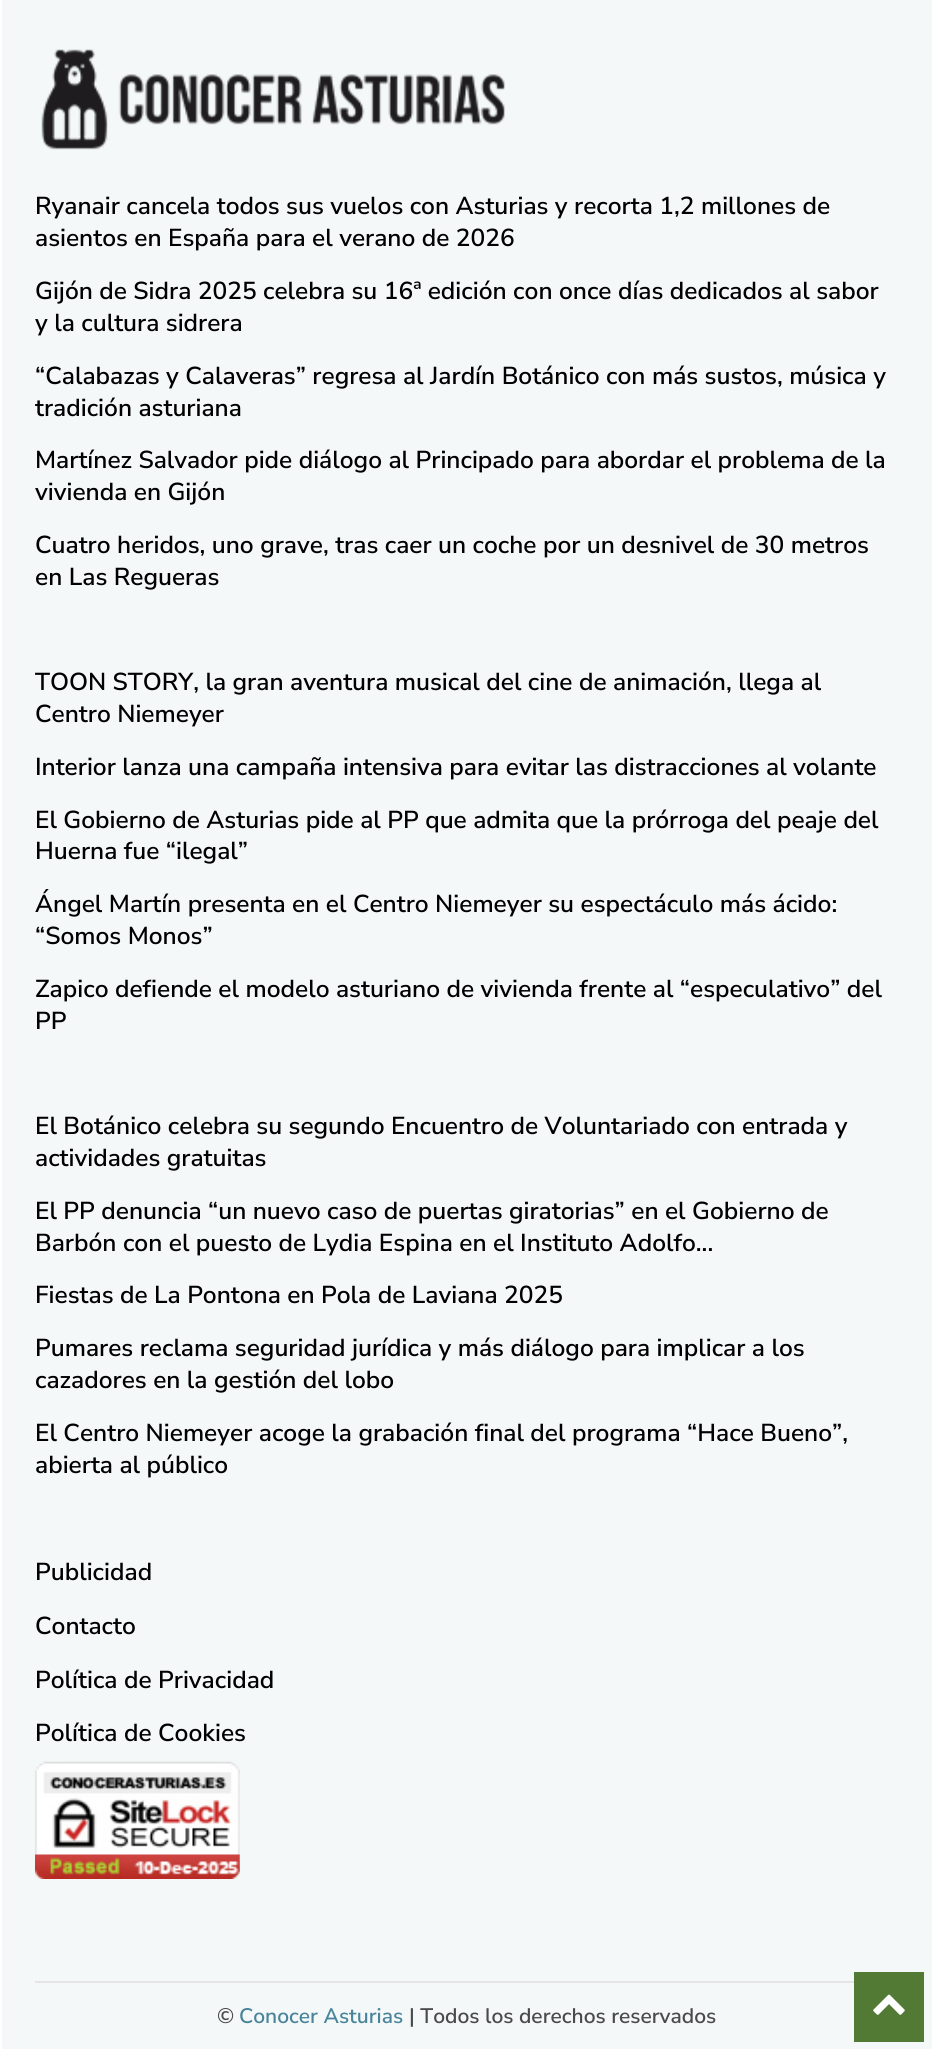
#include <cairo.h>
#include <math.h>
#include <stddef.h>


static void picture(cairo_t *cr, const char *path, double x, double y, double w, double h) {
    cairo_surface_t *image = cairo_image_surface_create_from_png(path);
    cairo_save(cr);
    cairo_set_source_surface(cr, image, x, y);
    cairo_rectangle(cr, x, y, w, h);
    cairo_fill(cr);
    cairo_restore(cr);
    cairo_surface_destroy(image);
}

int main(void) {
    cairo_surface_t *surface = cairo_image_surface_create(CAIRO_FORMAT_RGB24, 932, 2049);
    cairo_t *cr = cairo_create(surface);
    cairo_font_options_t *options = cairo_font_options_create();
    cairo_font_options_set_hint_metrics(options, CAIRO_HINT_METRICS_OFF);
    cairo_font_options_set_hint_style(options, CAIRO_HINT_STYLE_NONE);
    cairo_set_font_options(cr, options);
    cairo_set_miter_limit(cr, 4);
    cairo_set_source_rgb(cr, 1, 1, 1);
    cairo_paint(cr);
    cairo_set_source_rgb(cr, 0.957, 0.969, 0.969);
    cairo_rectangle(cr, 2, 0, 930, 2049);
    cairo_fill(cr);
    picture(cr, "img1.png", 41, 49, 464, 101);
    cairo_select_font_face(cr, "Nunito Sans SemiBold", CAIRO_FONT_SLANT_NORMAL, CAIRO_FONT_WEIGHT_NORMAL);
    cairo_set_font_size(cr, 24.5);
    cairo_set_source_rgb(cr, 0, 0, 0);
    cairo_move_to(cr, 35, 214);
    cairo_show_text(cr, "Ryanair cancela todos sus vuelos con Asturias y recorta 1,2 millones de");
    cairo_move_to(cr, 35, 246);
    cairo_show_text(cr, "asientos en España para el verano de 2026");
    cairo_move_to(cr, 35, 299);
    cairo_show_text(cr, "Gijón de Sidra 2025 celebra su 16ª edición con once días dedicados al sabor");
    cairo_move_to(cr, 35, 331);
    cairo_show_text(cr, "y la cultura sidrera");
    cairo_move_to(cr, 35, 384);
    cairo_show_text(cr, "“Calabazas y Calaveras” regresa al Jardín Botánico con más sustos, música y");
    cairo_move_to(cr, 35, 416);
    cairo_show_text(cr, "tradición asturiana");
    cairo_move_to(cr, 35, 468);
    cairo_show_text(cr, "Martínez Salvador pide diálogo al Principado para abordar el problema de la");
    cairo_move_to(cr, 35, 500);
    cairo_show_text(cr, "vivienda en Gijón");
    cairo_move_to(cr, 35, 553);
    cairo_show_text(cr, "Cuatro heridos, uno grave, tras caer un coche por un desnivel de 30 metros");
    cairo_move_to(cr, 35, 585);
    cairo_show_text(cr, "en Las Regueras");
    cairo_move_to(cr, 35, 690);
    cairo_show_text(cr, "TOON STORY, la gran aventura musical del cine de animación, llega al");
    cairo_move_to(cr, 35, 722);
    cairo_show_text(cr, "Centro Niemeyer");
    cairo_move_to(cr, 35, 775);
    cairo_show_text(cr, "Interior lanza una campaña intensiva para evitar las distracciones al volante");
    cairo_move_to(cr, 35, 828);
    cairo_show_text(cr, "El Gobierno de Asturias pide al PP que admita que la prórroga del peaje del");
    cairo_move_to(cr, 35, 859);
    cairo_show_text(cr, "Huerna fue “ilegal”");
    cairo_move_to(cr, 35, 912);
    cairo_show_text(cr, "Ángel Martín presenta en el Centro Niemeyer su espectáculo más ácido:");
    cairo_move_to(cr, 35, 944);
    cairo_show_text(cr, "“Somos Monos”");
    cairo_move_to(cr, 35, 997);
    cairo_show_text(cr, "Zapico defiende el modelo asturiano de vivienda frente al “especulativo” del");
    cairo_move_to(cr, 35, 1029);
    cairo_show_text(cr, "PP");
    cairo_move_to(cr, 35, 1134);
    cairo_show_text(cr, "El Botánico celebra su segundo Encuentro de Voluntariado con entrada y");
    cairo_move_to(cr, 35, 1166);
    cairo_show_text(cr, "actividades gratuitas");
    cairo_move_to(cr, 35, 1219);
    cairo_show_text(cr, "El PP denuncia “un nuevo caso de puertas giratorias” en el Gobierno de");
    cairo_move_to(cr, 35, 1251);
    cairo_show_text(cr, "Barbón con el puesto de Lydia Espina en el Instituto Adolfo...");
    cairo_move_to(cr, 35, 1303);
    cairo_show_text(cr, "Fiestas de La Pontona en Pola de Laviana 2025");
    cairo_move_to(cr, 35, 1356);
    cairo_show_text(cr, "Pumares reclama seguridad jurídica y más diálogo para implicar a los");
    cairo_move_to(cr, 35, 1388);
    cairo_show_text(cr, "cazadores en la gestión del lobo");
    cairo_move_to(cr, 35, 1441);
    cairo_show_text(cr, "El Centro Niemeyer acoge la grabación final del programa “Hace Bueno”,");
    cairo_move_to(cr, 35, 1473);
    cairo_show_text(cr, "abierta al público");
    cairo_move_to(cr, 35, 1580);
    cairo_show_text(cr, "Publicidad");
    cairo_move_to(cr, 35, 1634);
    cairo_show_text(cr, "Contacto");
    cairo_move_to(cr, 35, 1688);
    cairo_show_text(cr, "Política de Privacidad");
    cairo_move_to(cr, 35, 1741);
    cairo_show_text(cr, "Política de Cookies");
    picture(cr, "img2.png", 35, 1761, 205, 118);
    cairo_set_source_rgb(cr, 0.898, 0.898, 0.898);
    cairo_rectangle(cr, 35, 1981, 819, 2);
    cairo_fill(cr);
    cairo_set_font_size(cr, 21);
    cairo_set_source_rgb(cr, 0.286, 0.29, 0.29);
    cairo_move_to(cr, 217, 2023);
    cairo_show_text(cr, "©");
    cairo_set_source_rgb(cr, 0.29, 0.518, 0.604);
    cairo_move_to(cr, 239, 2023);
    cairo_show_text(cr, "Conocer Asturias");
    cairo_set_source_rgb(cr, 0.286, 0.29, 0.29);
    cairo_move_to(cr, 409, 2023);
    cairo_show_text(cr, "| Todos los derechos reservados");
    cairo_set_source_rgb(cr, 0.322, 0.478, 0.208);
    cairo_rectangle(cr, 854, 1972, 70, 70);
    cairo_fill(cr);
    picture(cr, "img3.png", 873, 1994, 32, 21);
    cairo_surface_write_to_png(surface, "page.png");
    cairo_font_options_destroy(options);
    cairo_destroy(cr);
    cairo_surface_destroy(surface);
    return 0;
}
